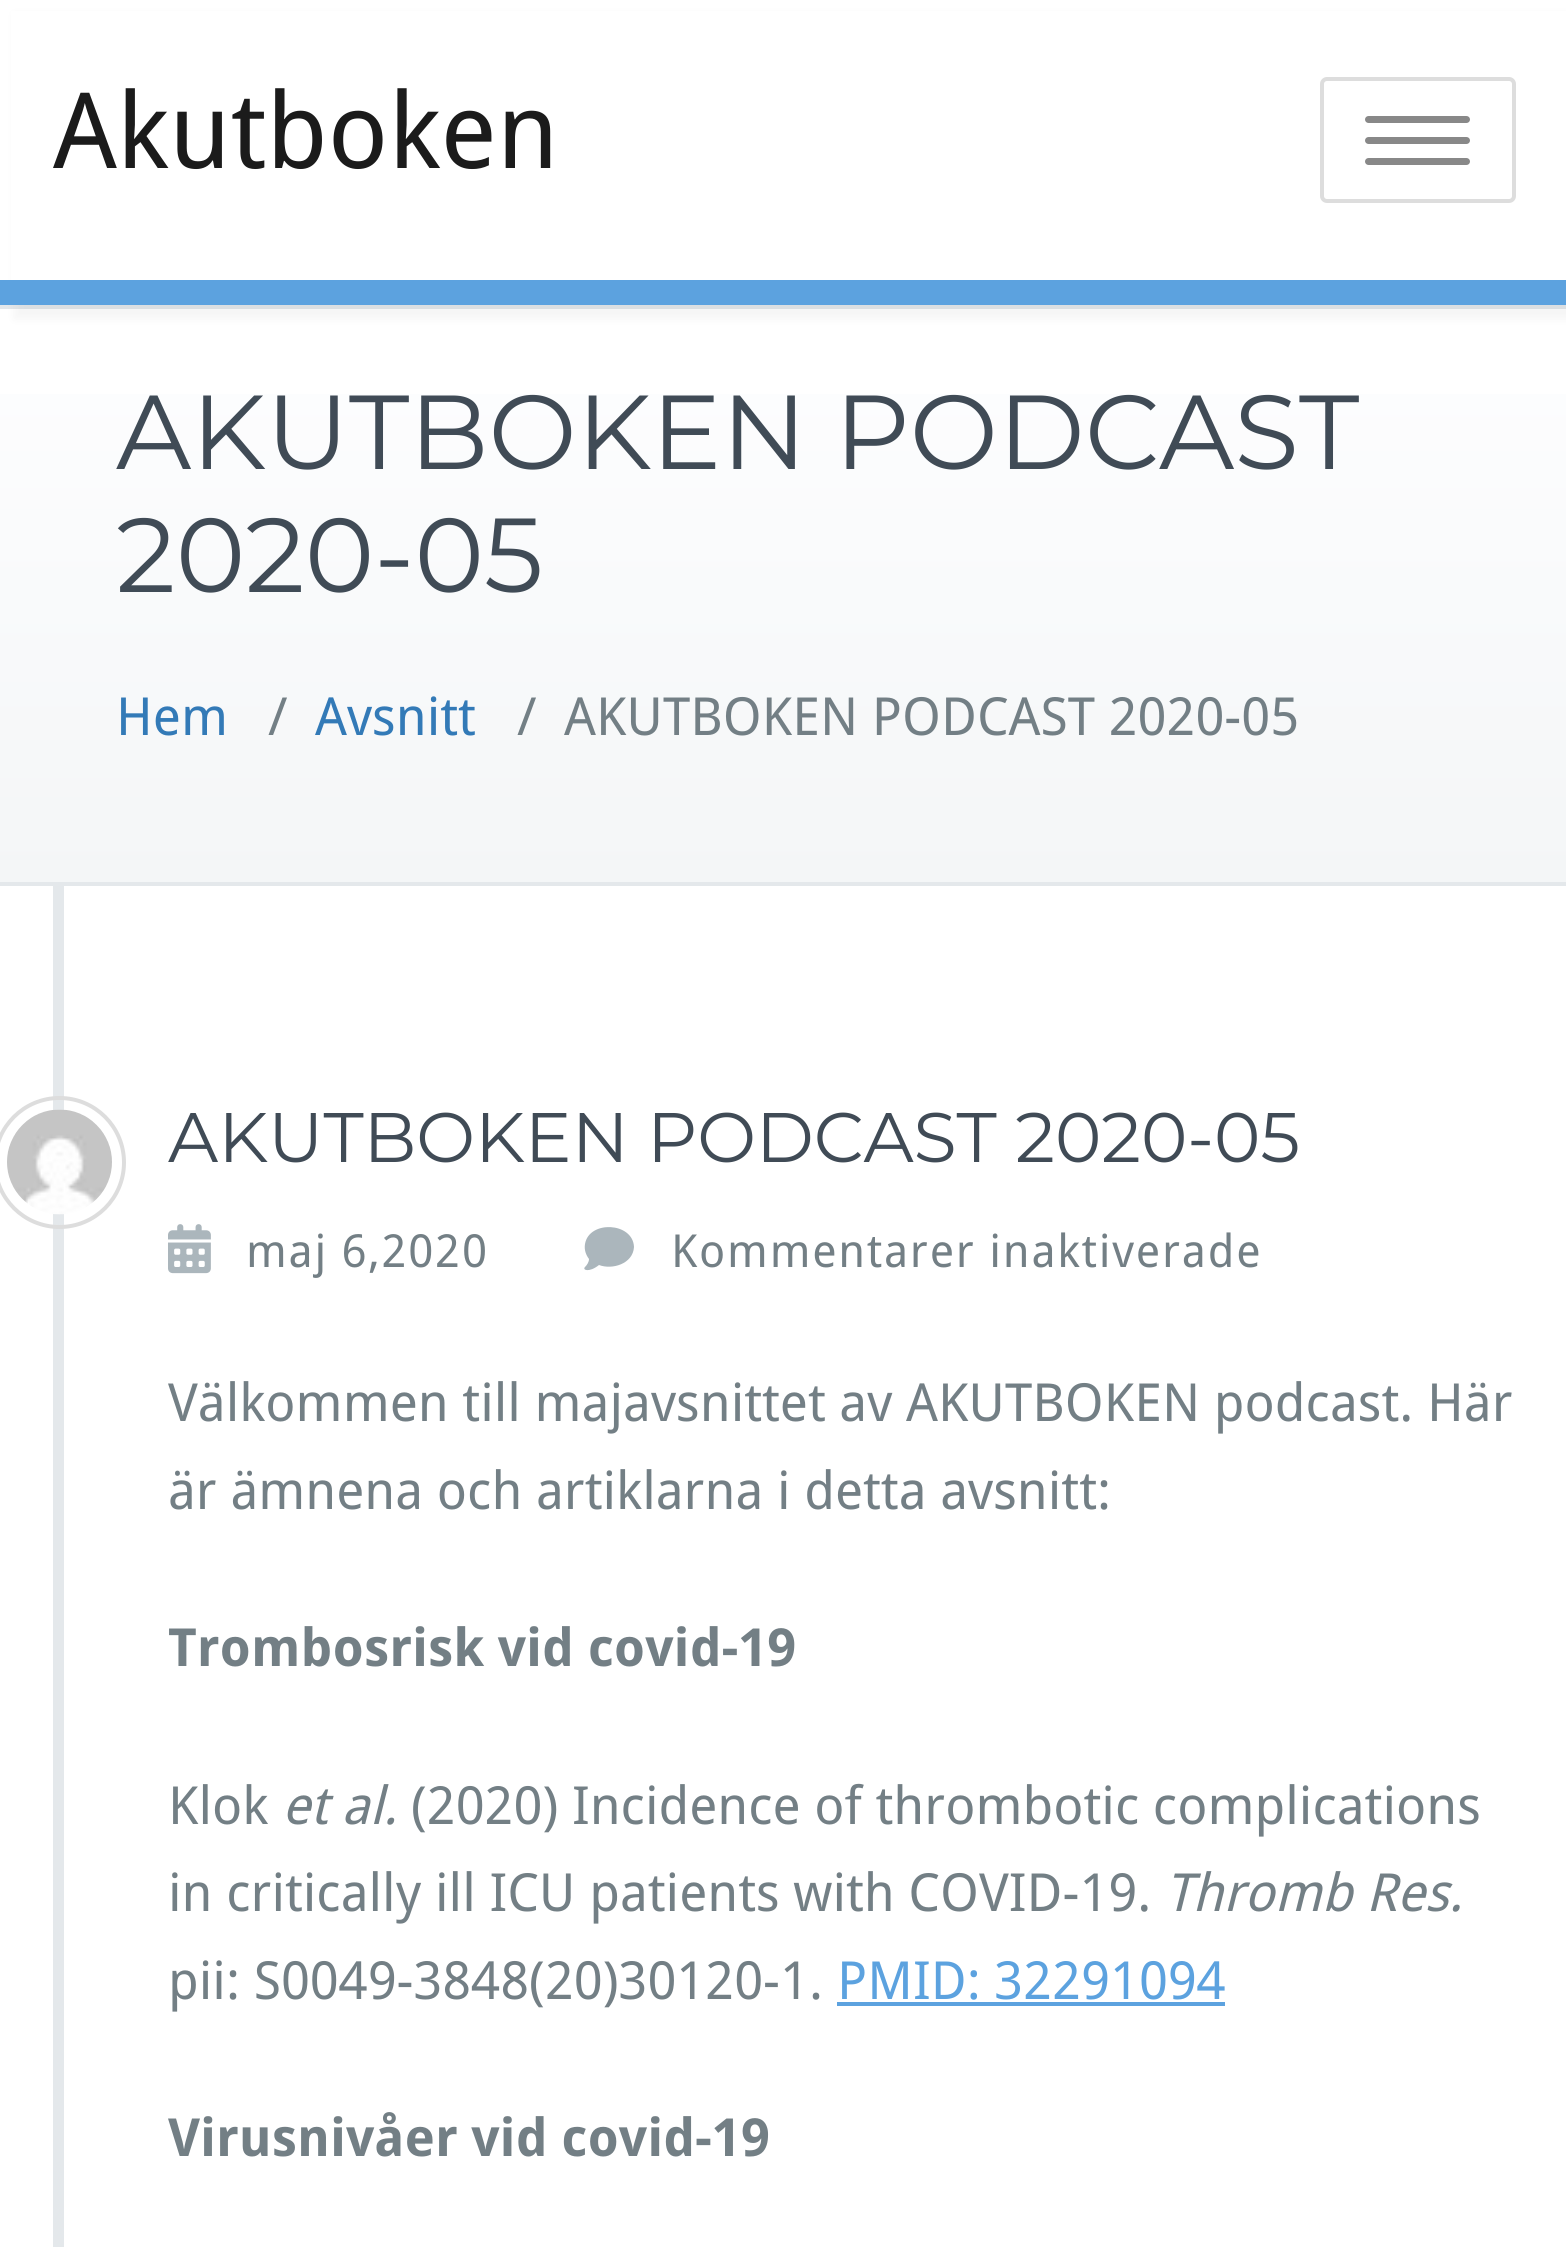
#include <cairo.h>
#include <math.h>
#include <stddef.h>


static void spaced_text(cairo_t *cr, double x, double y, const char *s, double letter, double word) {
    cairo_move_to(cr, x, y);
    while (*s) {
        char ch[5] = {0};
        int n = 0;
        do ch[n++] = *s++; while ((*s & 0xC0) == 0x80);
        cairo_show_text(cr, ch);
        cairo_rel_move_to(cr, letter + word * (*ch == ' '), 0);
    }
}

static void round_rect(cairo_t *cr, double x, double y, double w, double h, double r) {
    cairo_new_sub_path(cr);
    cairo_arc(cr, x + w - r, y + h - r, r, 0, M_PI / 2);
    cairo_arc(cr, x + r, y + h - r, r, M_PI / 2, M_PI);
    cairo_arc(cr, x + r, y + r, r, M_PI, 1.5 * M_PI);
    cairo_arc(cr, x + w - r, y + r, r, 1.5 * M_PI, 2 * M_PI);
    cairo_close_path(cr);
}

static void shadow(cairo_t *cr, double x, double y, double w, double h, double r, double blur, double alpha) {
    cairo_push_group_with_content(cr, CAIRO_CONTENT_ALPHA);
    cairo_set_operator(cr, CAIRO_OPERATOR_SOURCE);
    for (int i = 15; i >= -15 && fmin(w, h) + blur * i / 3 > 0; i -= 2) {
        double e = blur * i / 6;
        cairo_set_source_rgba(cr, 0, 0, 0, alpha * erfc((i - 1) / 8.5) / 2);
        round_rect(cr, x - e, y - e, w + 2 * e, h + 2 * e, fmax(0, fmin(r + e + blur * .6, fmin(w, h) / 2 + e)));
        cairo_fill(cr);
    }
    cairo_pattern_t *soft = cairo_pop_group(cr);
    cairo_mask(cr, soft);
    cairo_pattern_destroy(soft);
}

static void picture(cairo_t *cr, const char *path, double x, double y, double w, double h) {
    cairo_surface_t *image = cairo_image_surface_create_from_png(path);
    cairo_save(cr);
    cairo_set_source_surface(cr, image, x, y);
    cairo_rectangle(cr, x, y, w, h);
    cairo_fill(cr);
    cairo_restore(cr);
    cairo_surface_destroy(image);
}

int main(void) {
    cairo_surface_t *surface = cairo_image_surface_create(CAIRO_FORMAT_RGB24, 1566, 2247);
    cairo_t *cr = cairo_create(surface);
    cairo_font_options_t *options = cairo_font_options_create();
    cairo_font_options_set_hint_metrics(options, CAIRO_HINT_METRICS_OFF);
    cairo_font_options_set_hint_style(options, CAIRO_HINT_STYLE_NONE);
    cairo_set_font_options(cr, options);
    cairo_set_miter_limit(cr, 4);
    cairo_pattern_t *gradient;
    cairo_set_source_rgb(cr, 1, 1, 1);
    cairo_paint(cr);
    cairo_set_source_rgb(cr, 0.894, 0.91, 0.918);
    cairo_rectangle(cr, 0, 305, 1566, 4);
    cairo_fill(cr);
    cairo_set_source_rgb(cr, 0, 0, 0);
    shadow(cr, 14, 14, 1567, 305, 0, 5, 0.04);
    cairo_set_source_rgb(cr, 1, 1, 1);
    cairo_rectangle(cr, 11, 11, 1555, 269);
    cairo_fill(cr);
    cairo_set_source_rgb(cr, 0.361, 0.635, 0.875);
    cairo_rectangle(cr, 0, 280, 1566, 25);
    cairo_fill(cr);
    cairo_select_font_face(cr, "Droid Sans", CAIRO_FONT_SLANT_NORMAL, CAIRO_FONT_WEIGHT_NORMAL);
    cairo_set_font_size(cr, 105);
    cairo_set_source_rgb(cr, 0.106, 0.106, 0.106);
    cairo_move_to(cr, 53, 168);
    cairo_show_text(cr, "Akutboken");
    round_rect(cr, 1322, 79, 192, 122, 5);
    cairo_set_source_rgb(cr, 0.867, 0.867, 0.867);
    cairo_set_line_width(cr, 4);
    cairo_stroke(cr);
    cairo_set_source_rgb(cr, 0.533, 0.533, 0.533);
    round_rect(cr, 1365, 116, 105, 7, 3.5);
    cairo_fill(cr);
    round_rect(cr, 1365, 137, 105, 7, 3.5);
    cairo_fill(cr);
    round_rect(cr, 1365, 158, 105, 7, 3.5);
    cairo_fill(cr);
    gradient = cairo_pattern_create_linear(784, 308, 784, 882);
    cairo_pattern_add_color_stop_rgba(gradient, 0, 0.996, 0.996, 1, 1);
    cairo_pattern_add_color_stop_rgba(gradient, 1, 0.957, 0.965, 0.969, 1);
    cairo_set_source(cr, gradient);
    cairo_pattern_destroy(gradient);
    cairo_rectangle(cr, 0, 394, 1566, 488);
    cairo_fill(cr);
    cairo_set_source_rgb(cr, 0.894, 0.91, 0.918);
    cairo_rectangle(cr, 0, 882, 1566, 4);
    cairo_fill(cr);
    cairo_select_font_face(cr, "Montserrat", CAIRO_FONT_SLANT_NORMAL, CAIRO_FONT_WEIGHT_NORMAL);
    cairo_set_source_rgb(cr, 0.251, 0.294, 0.337);
    cairo_move_to(cr, 116, 469);
    cairo_show_text(cr, "AKUTBOKEN PODCAST");
    cairo_move_to(cr, 116, 592);
    cairo_show_text(cr, "2020-05");
    cairo_select_font_face(cr, "Droid Sans", CAIRO_FONT_SLANT_NORMAL, CAIRO_FONT_WEIGHT_NORMAL);
    cairo_set_font_size(cr, 52.5);
    cairo_set_source_rgb(cr, 0.2, 0.478, 0.718);
    cairo_move_to(cr, 116, 735);
    cairo_show_text(cr, "Hem");
    cairo_set_source_rgb(cr, 0.451, 0.498, 0.522);
    cairo_move_to(cr, 268, 735);
    cairo_show_text(cr, "/");
    cairo_set_source_rgb(cr, 0.2, 0.478, 0.718);
    cairo_move_to(cr, 315, 735);
    cairo_show_text(cr, "Avsnitt");
    cairo_set_source_rgb(cr, 0.451, 0.498, 0.522);
    cairo_move_to(cr, 517, 735);
    cairo_show_text(cr, "/");
    cairo_move_to(cr, 564, 735);
    cairo_show_text(cr, "AKUTBOKEN PODCAST 2020-05");
    cairo_set_source_rgb(cr, 0.894, 0.91, 0.918);
    cairo_rectangle(cr, 53, 886, 11, 1361);
    cairo_fill(cr);
    cairo_arc(cr, 59.5, 1162.5, 64.5, 0, 2 * M_PI);
    cairo_set_source_rgb(cr, 0.867, 0.867, 0.867);
    cairo_stroke(cr);
    picture(cr, "img1.png", 7, 1109, 105, 106);
    cairo_select_font_face(cr, "Montserrat", CAIRO_FONT_SLANT_NORMAL, CAIRO_FONT_WEIGHT_NORMAL);
    cairo_set_font_size(cr, 70);
    cairo_set_source_rgb(cr, 0.251, 0.294, 0.337);
    cairo_move_to(cr, 168, 1162);
    cairo_show_text(cr, "AKUTBOKEN PODCAST 2020-05");
    picture(cr, "img2.png", 168, 1224, 43, 50);
    cairo_select_font_face(cr, "Droid Sans", CAIRO_FONT_SLANT_NORMAL, CAIRO_FONT_WEIGHT_NORMAL);
    cairo_set_font_size(cr, 45.5);
    cairo_set_source_rgb(cr, 0.451, 0.498, 0.522);
    spaced_text(cr, 246, 1267, "maj 6,2020", 1.75, 0);
    cairo_set_source_rgb(cr, 0.671, 0.714, 0.737);
    cairo_new_path(cr);
    cairo_move_to(cr, 634, 1247);
    cairo_curve_to(cr, 633, 1264, 612, 1270, 599, 1265);
    cairo_curve_to(cr, 589, 1273, 582, 1270, 585, 1267);
    cairo_curve_to(cr, 587, 1265, 589, 1262, 589, 1259);
    cairo_curve_to(cr, 586, 1255, 584, 1250, 585, 1244);
    cairo_curve_to(cr, 589, 1220, 633, 1222, 634, 1247);
    cairo_close_path(cr);
    cairo_fill(cr);
    cairo_set_source_rgb(cr, 0.451, 0.498, 0.522);
    spaced_text(cr, 671, 1267, "Kommentarer inaktiverade", 1.75, 0);
    cairo_set_font_size(cr, 52.5);
    cairo_move_to(cr, 168, 1421);
    cairo_show_text(cr, "Välkommen till majavsnittet av AKUTBOKEN podcast. Här");
    cairo_move_to(cr, 168, 1509);
    cairo_show_text(cr, "är ämnena och artiklarna i detta avsnitt:");
    cairo_select_font_face(cr, "Droid Sans", CAIRO_FONT_SLANT_NORMAL, CAIRO_FONT_WEIGHT_BOLD);
    cairo_move_to(cr, 168, 1666);
    cairo_show_text(cr, "Trombosrisk vid covid-19");
    cairo_select_font_face(cr, "Droid Sans", CAIRO_FONT_SLANT_NORMAL, CAIRO_FONT_WEIGHT_NORMAL);
    cairo_move_to(cr, 168, 1824);
    cairo_show_text(cr, "Klok");
    cairo_select_font_face(cr, "Droid Sans", CAIRO_FONT_SLANT_ITALIC, CAIRO_FONT_WEIGHT_NORMAL);
    cairo_move_to(cr, 282, 1824);
    cairo_show_text(cr, "et al.");
    cairo_select_font_face(cr, "Droid Sans", CAIRO_FONT_SLANT_NORMAL, CAIRO_FONT_WEIGHT_NORMAL);
    cairo_move_to(cr, 411, 1824);
    cairo_show_text(cr, "(2020) Incidence of thrombotic complications");
    cairo_move_to(cr, 168, 1911);
    cairo_show_text(cr, "in critically ill ICU patients with COVID-19.");
    cairo_select_font_face(cr, "Droid Sans", CAIRO_FONT_SLANT_ITALIC, CAIRO_FONT_WEIGHT_NORMAL);
    cairo_move_to(cr, 1165, 1911);
    cairo_show_text(cr, "Thromb Res.");
    cairo_select_font_face(cr, "Droid Sans", CAIRO_FONT_SLANT_NORMAL, CAIRO_FONT_WEIGHT_NORMAL);
    cairo_move_to(cr, 168, 1999);
    cairo_show_text(cr, "pii: S0049-3848(20)30120-1.");
    cairo_set_source_rgb(cr, 0.361, 0.635, 0.875);
    cairo_move_to(cr, 837, 1999);
    cairo_show_text(cr, "PMID: 32291094");
    cairo_rectangle(cr, 837, 2002, 388, 4);
    cairo_fill(cr);
    cairo_select_font_face(cr, "Droid Sans", CAIRO_FONT_SLANT_NORMAL, CAIRO_FONT_WEIGHT_BOLD);
    cairo_set_source_rgb(cr, 0.451, 0.498, 0.522);
    cairo_move_to(cr, 168, 2156);
    cairo_show_text(cr, "Virusnivåer vid covid-19");
    cairo_surface_write_to_png(surface, "page.png");
    cairo_font_options_destroy(options);
    cairo_destroy(cr);
    cairo_surface_destroy(surface);
    return 0;
}
